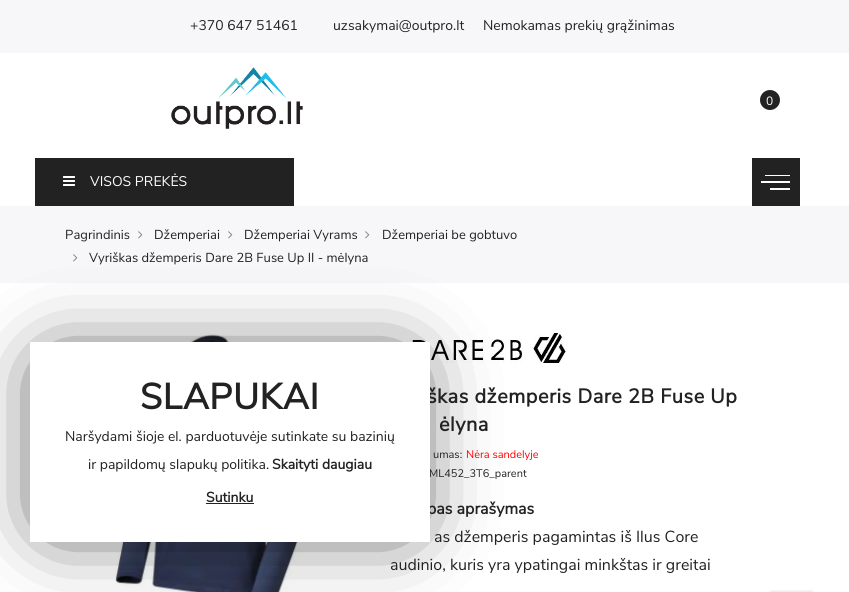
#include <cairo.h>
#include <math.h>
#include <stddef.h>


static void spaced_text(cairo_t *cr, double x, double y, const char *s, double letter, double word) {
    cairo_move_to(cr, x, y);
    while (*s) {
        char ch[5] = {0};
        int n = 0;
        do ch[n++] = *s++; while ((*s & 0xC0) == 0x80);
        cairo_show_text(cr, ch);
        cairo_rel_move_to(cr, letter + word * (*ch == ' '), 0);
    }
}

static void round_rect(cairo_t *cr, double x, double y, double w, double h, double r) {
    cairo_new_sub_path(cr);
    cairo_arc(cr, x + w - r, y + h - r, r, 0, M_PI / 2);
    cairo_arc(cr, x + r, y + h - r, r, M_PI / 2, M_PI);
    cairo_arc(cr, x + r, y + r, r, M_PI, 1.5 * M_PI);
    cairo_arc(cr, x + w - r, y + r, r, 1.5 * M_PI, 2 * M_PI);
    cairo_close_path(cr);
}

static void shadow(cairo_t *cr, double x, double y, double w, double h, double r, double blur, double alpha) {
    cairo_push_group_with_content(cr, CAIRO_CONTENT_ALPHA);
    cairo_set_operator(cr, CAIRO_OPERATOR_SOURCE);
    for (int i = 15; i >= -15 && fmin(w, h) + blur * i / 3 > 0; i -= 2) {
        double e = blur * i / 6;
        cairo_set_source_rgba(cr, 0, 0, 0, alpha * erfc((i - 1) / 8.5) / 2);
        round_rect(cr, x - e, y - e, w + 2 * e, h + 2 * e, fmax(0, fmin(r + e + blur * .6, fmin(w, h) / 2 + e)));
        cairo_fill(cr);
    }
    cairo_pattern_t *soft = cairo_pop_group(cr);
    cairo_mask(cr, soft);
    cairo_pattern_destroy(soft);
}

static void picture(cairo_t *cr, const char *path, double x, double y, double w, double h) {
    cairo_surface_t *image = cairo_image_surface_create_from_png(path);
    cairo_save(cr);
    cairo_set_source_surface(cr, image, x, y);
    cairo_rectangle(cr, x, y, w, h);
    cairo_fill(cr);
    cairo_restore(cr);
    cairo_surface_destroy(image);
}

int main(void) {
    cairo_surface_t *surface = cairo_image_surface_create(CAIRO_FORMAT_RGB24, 849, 592);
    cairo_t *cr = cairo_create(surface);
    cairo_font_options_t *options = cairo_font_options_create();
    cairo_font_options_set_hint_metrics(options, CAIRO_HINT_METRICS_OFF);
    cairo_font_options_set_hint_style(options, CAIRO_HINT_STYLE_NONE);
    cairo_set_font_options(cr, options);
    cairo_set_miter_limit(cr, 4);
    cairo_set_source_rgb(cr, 1, 1, 1);
    cairo_paint(cr);
    cairo_set_source_rgb(cr, 0.965, 0.965, 0.973);
    cairo_rectangle(cr, 0, 0, 849, 53);
    cairo_fill(cr);
    cairo_select_font_face(cr, "Nunito Sans", CAIRO_FONT_SLANT_NORMAL, CAIRO_FONT_WEIGHT_NORMAL);
    cairo_set_font_size(cr, 14);
    cairo_set_source_rgb(cr, 0.133, 0.133, 0.133);
    cairo_move_to(cr, 190, 30);
    cairo_show_text(cr, "+370 647 51461");
    cairo_move_to(cr, 333, 30);
    cairo_show_text(cr, "uzsakymai@outpro.lt");
    cairo_move_to(cr, 483, 30);
    cairo_show_text(cr, "Nemokamas prekių grąžinimas");
    picture(cr, "img1.png", 171, 67, 132, 62);
    cairo_arc(cr, 770, 100, 10, 0, 2 * M_PI);
    cairo_fill(cr);
    cairo_set_font_size(cr, 12);
    cairo_set_source_rgb(cr, 1, 1, 1);
    cairo_move_to(cr, 766, 105);
    cairo_show_text(cr, "0");
    cairo_set_source_rgb(cr, 0.133, 0.133, 0.133);
    cairo_rectangle(cr, 35, 158, 259, 48);
    cairo_fill(cr);
    picture(cr, "img2.png", 63, 176, 12, 10);
    cairo_set_font_size(cr, 14);
    cairo_set_source_rgb(cr, 1, 1, 1);
    cairo_move_to(cr, 90, 186);
    cairo_show_text(cr, "VISOS PREKĖS");
    cairo_set_source_rgb(cr, 0.133, 0.133, 0.133);
    cairo_rectangle(cr, 752, 158, 48, 48);
    cairo_fill(cr);
    cairo_set_source_rgb(cr, 1, 1, 1);
    cairo_rectangle(cr, 765, 175, 25, 1);
    cairo_fill(cr);
    cairo_rectangle(cr, 761, 181, 29, 2);
    cairo_fill(cr);
    cairo_rectangle(cr, 770, 188, 20, 2);
    cairo_fill(cr);
    cairo_set_source_rgb(cr, 0.965, 0.965, 0.973);
    cairo_rectangle(cr, 0, 206, 849, 77);
    cairo_fill(cr);
    cairo_set_font_size(cr, 13);
    cairo_set_source_rgb(cr, 0.133, 0.133, 0.133);
    cairo_move_to(cr, 65, 239);
    cairo_show_text(cr, "Pagrindinis");
    picture(cr, "img3.png", 138, 231, 5, 8);
    cairo_move_to(cr, 154, 239);
    cairo_show_text(cr, "Džemperiai");
    picture(cr, "img3.png", 228, 231, 5, 8);
    cairo_move_to(cr, 244, 239);
    cairo_show_text(cr, "Džemperiai Vyrams");
    picture(cr, "img3.png", 365, 231, 5, 8);
    cairo_move_to(cr, 382, 239);
    cairo_show_text(cr, "Džemperiai be gobtuvo");
    picture(cr, "img3.png", 73, 254, 5, 8);
    cairo_move_to(cr, 89, 262);
    cairo_show_text(cr, "Vyriškas džemperis Dare 2B Fuse Up II - mėlyna");
    picture(cr, "img4.png", 115, 334, 195, 258);
    picture(cr, "img5.png", 410, 331, 156, 32);
    cairo_set_source_rgb(cr, 0, 0, 0);
    shadow(cr, 54, 370, 348, 148, 0, 41, 1);
    cairo_select_font_face(cr, "Nunito Sans", CAIRO_FONT_SLANT_NORMAL, CAIRO_FONT_WEIGHT_BOLD);
    cairo_set_font_size(cr, 20);
    cairo_set_source_rgb(cr, 0.133, 0.133, 0.133);
    spaced_text(cr, 427, 403, "škas džemperis Dare 2B Fuse Up", 0.5, 0);
    cairo_select_font_face(cr, "Nunito Sans", CAIRO_FONT_SLANT_NORMAL, CAIRO_FONT_WEIGHT_NORMAL);
    cairo_set_font_size(cr, 11);
    cairo_move_to(cr, 429, 477);
    cairo_show_text(cr, "ML452_3T6_parent");
    cairo_select_font_face(cr, "Nunito Sans", CAIRO_FONT_SLANT_NORMAL, CAIRO_FONT_WEIGHT_BOLD);
    cairo_set_font_size(cr, 16);
    cairo_move_to(cr, 427, 514);
    cairo_show_text(cr, "pas aprašymas");
    cairo_set_source_rgb(cr, 1, 1, 1);
    cairo_rectangle(cr, 30, 342, 400, 200);
    cairo_fill(cr);
    cairo_set_font_size(cr, 36);
    cairo_set_source_rgb(cr, 0.133, 0.133, 0.133);
    spaced_text(cr, 140, 409, "SLAPUKAI", 0.5, 0);
    cairo_select_font_face(cr, "Nunito Sans", CAIRO_FONT_SLANT_NORMAL, CAIRO_FONT_WEIGHT_NORMAL);
    cairo_set_font_size(cr, 14);
    cairo_move_to(cr, 65, 441);
    cairo_show_text(cr, "Naršydami šioje el. parduotuvėje sutinkate su bazinių");
    cairo_move_to(cr, 88, 469);
    cairo_show_text(cr, "ir papildomų slapukų politika.");
    cairo_select_font_face(cr, "Nunito Sans", CAIRO_FONT_SLANT_NORMAL, CAIRO_FONT_WEIGHT_BOLD);
    cairo_move_to(cr, 272, 469);
    cairo_show_text(cr, "Skaityti daugiau");
    cairo_move_to(cr, 206, 502);
    cairo_show_text(cr, "Sutinku");
    cairo_rectangle(cr, 206, 503, 48, 1);
    cairo_fill(cr);
    cairo_set_font_size(cr, 20);
    spaced_text(cr, 439, 431, "ėlyna", 0.5, 0);
    cairo_select_font_face(cr, "Nunito Sans", CAIRO_FONT_SLANT_NORMAL, CAIRO_FONT_WEIGHT_NORMAL);
    cairo_set_font_size(cr, 11);
    cairo_move_to(cr, 433, 458);
    cairo_show_text(cr, "umas:");
    cairo_set_source_rgb(cr, 1, 0, 0);
    cairo_move_to(cr, 466, 458);
    cairo_show_text(cr, "Nėra sandelyje");
    cairo_set_font_size(cr, 16);
    cairo_set_source_rgb(cr, 0.133, 0.133, 0.133);
    cairo_move_to(cr, 434, 542);
    cairo_show_text(cr, "as džemperis pagamintas iš Ilus Core");
    cairo_move_to(cr, 390, 570);
    cairo_show_text(cr, "audinio, kuris yra ypatingai minkštas ir greitai");
    cairo_set_source_rgb(cr, 0, 0, 0);
    shadow(cr, 769, 592, 45, 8, 3, 1.5, 0.2);
    cairo_surface_write_to_png(surface, "page.png");
    cairo_font_options_destroy(options);
    cairo_destroy(cr);
    cairo_surface_destroy(surface);
    return 0;
}
